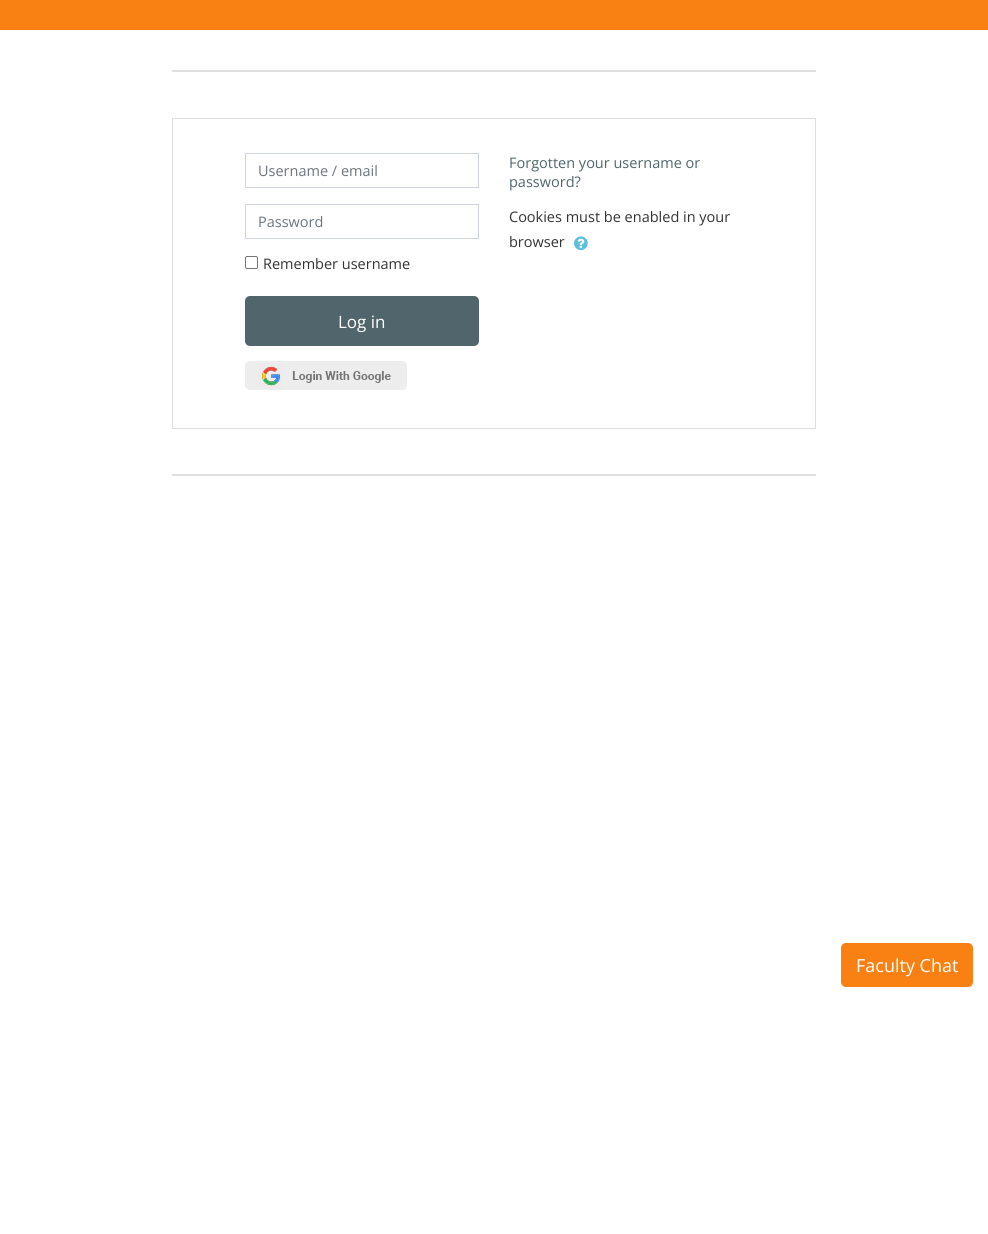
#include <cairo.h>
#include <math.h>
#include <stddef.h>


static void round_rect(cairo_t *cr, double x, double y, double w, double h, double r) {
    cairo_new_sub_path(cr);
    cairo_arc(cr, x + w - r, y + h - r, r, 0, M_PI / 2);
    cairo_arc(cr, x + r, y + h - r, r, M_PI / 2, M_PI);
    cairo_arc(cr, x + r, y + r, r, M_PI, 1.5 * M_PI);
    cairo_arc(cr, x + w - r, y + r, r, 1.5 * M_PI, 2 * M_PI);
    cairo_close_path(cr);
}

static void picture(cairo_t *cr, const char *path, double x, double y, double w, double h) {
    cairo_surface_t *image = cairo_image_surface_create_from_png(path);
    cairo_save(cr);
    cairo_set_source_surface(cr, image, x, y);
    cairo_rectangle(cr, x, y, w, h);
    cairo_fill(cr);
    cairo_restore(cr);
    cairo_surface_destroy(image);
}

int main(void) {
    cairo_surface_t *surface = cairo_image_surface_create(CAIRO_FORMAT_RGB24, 988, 1234);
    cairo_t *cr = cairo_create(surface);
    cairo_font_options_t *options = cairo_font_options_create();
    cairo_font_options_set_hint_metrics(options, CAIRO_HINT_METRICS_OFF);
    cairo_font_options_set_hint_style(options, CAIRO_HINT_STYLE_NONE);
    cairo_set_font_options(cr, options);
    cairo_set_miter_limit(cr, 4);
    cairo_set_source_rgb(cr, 1, 1, 1);
    cairo_paint(cr);
    cairo_set_source_rgb(cr, 0.976, 0.502, 0.071);
    cairo_rectangle(cr, 0, 0, 988, 30);
    cairo_fill(cr);
    cairo_set_source_rgb(cr, 0.875, 0.875, 0.875);
    cairo_rectangle(cr, 172, 70, 644, 2);
    cairo_fill(cr);
    cairo_rectangle(cr, 172.5, 118.5, 643, 310);
    cairo_set_line_width(cr, 1);
    cairo_stroke(cr);
    cairo_rectangle(cr, 245.5, 153.5, 233, 34);
    cairo_set_source_rgb(cr, 0.808, 0.831, 0.855);
    cairo_stroke(cr);
    cairo_select_font_face(cr, "Open Sans", CAIRO_FONT_SLANT_NORMAL, CAIRO_FONT_WEIGHT_NORMAL);
    cairo_set_font_size(cr, 14.5);
    cairo_set_source_rgb(cr, 0.424, 0.459, 0.49);
    cairo_move_to(cr, 258, 176);
    cairo_show_text(cr, "Username / email");
    cairo_rectangle(cr, 245.5, 204.5, 233, 34);
    cairo_set_source_rgb(cr, 0.808, 0.831, 0.855);
    cairo_stroke(cr);
    cairo_set_source_rgb(cr, 0.424, 0.459, 0.49);
    cairo_move_to(cr, 258, 227);
    cairo_show_text(cr, "Password");
    round_rect(cr, 245.5, 256.5, 12, 12, 1.5);
    cairo_set_source_rgb(cr, 0.463, 0.463, 0.463);
    cairo_stroke(cr);
    cairo_set_source_rgb(cr, 0.2, 0.2, 0.2);
    cairo_move_to(cr, 263, 269);
    cairo_show_text(cr, "Remember username");
    cairo_set_source_rgb(cr, 0.318, 0.4, 0.424);
    round_rect(cr, 245, 296, 234, 50, 5);
    cairo_fill(cr);
    cairo_set_font_size(cr, 17);
    cairo_set_source_rgb(cr, 1, 1, 1);
    cairo_move_to(cr, 338, 328);
    cairo_show_text(cr, "Log in");
    picture(cr, "img1.png", 245, 361, 162, 29);
    cairo_set_font_size(cr, 14.5);
    cairo_set_source_rgb(cr, 0.318, 0.4, 0.424);
    cairo_move_to(cr, 509, 168);
    cairo_show_text(cr, "Forgotten your username or");
    cairo_move_to(cr, 509, 187);
    cairo_show_text(cr, "password?");
    cairo_set_source_rgb(cr, 0.2, 0.2, 0.2);
    cairo_move_to(cr, 509, 222);
    cairo_show_text(cr, "Cookies must be enabled in your");
    cairo_move_to(cr, 509, 247);
    cairo_show_text(cr, "browser");
    picture(cr, "img2.png", 574, 236, 14, 15);
    cairo_set_source_rgb(cr, 0.875, 0.875, 0.875);
    cairo_rectangle(cr, 172, 474, 644, 2);
    cairo_fill(cr);
    cairo_set_source_rgb(cr, 0.976, 0.502, 0.071);
    round_rect(cr, 841, 943, 132, 44, 5);
    cairo_fill(cr);
    cairo_set_font_size(cr, 18);
    cairo_set_source_rgb(cr, 1, 1, 1);
    cairo_move_to(cr, 856, 972);
    cairo_show_text(cr, "Faculty Chat");
    cairo_surface_write_to_png(surface, "page.png");
    cairo_font_options_destroy(options);
    cairo_destroy(cr);
    cairo_surface_destroy(surface);
    return 0;
}
